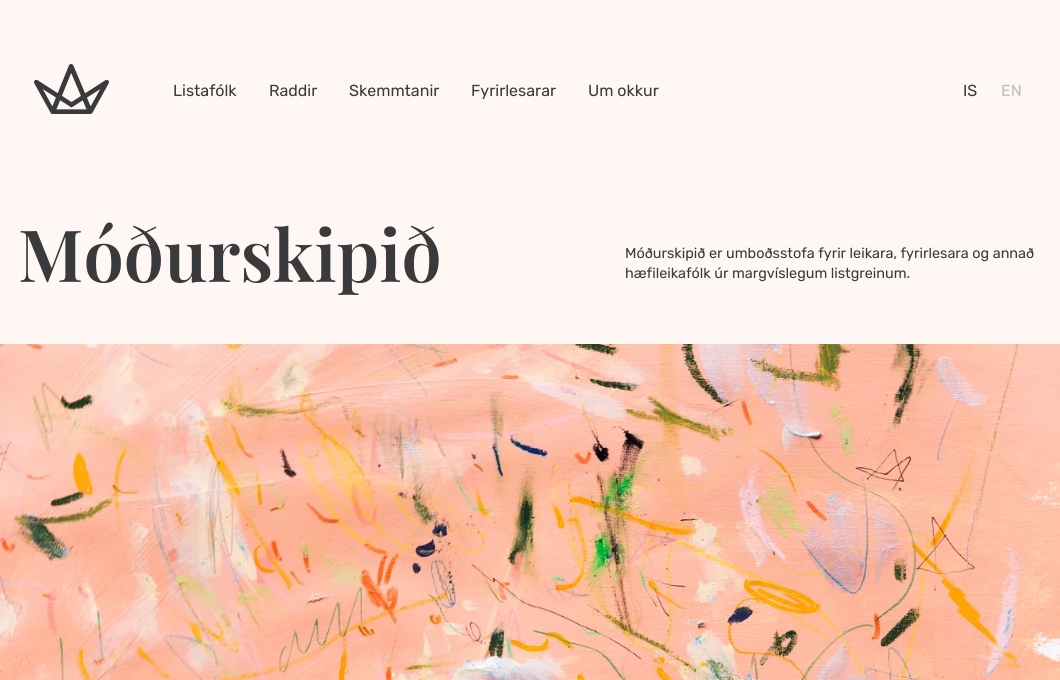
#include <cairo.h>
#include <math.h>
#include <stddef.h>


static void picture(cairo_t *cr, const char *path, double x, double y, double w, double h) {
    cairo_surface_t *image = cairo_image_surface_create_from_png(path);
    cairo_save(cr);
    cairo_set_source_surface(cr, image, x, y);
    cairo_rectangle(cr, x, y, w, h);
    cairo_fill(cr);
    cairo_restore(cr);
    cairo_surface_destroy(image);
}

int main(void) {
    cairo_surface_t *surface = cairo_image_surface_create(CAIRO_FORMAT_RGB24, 1060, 680);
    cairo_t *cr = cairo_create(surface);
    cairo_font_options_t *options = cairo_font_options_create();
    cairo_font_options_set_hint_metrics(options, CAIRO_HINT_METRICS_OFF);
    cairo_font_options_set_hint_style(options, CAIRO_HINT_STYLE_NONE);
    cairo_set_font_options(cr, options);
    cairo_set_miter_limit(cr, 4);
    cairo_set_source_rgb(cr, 1, 0.965, 0.953);
    cairo_paint(cr);
    picture(cr, "img1.png", 34, 64, 75, 50);
    cairo_select_font_face(cr, "Rubik", CAIRO_FONT_SLANT_NORMAL, CAIRO_FONT_WEIGHT_NORMAL);
    cairo_set_font_size(cr, 16);
    cairo_set_source_rgb(cr, 0.22, 0.227, 0.235);
    cairo_move_to(cr, 173, 96);
    cairo_show_text(cr, "Listafólk");
    cairo_move_to(cr, 269, 96);
    cairo_show_text(cr, "Raddir");
    cairo_move_to(cr, 349, 96);
    cairo_show_text(cr, "Skemmtanir");
    cairo_move_to(cr, 471, 96);
    cairo_show_text(cr, "Fyrirlesarar");
    cairo_move_to(cr, 588, 96);
    cairo_show_text(cr, "Um okkur");
    cairo_move_to(cr, 963, 96);
    cairo_show_text(cr, "IS");
    cairo_set_source_rgb(cr, 0.765, 0.745, 0.737);
    cairo_move_to(cr, 1001, 96);
    cairo_show_text(cr, "EN");
    cairo_select_font_face(cr, "Playfair Display SemiBold", CAIRO_FONT_SLANT_NORMAL, CAIRO_FONT_WEIGHT_NORMAL);
    cairo_set_font_size(cr, 72);
    cairo_set_source_rgb(cr, 0.22, 0.227, 0.235);
    cairo_move_to(cr, 18, 282);
    cairo_show_text(cr, "Móðurskipið");
    cairo_select_font_face(cr, "Rubik", CAIRO_FONT_SLANT_NORMAL, CAIRO_FONT_WEIGHT_NORMAL);
    cairo_set_font_size(cr, 14.4);
    cairo_move_to(cr, 625, 258);
    cairo_show_text(cr, "Móðurskipið er umboðsstofa fyrir leikara, fyrirlesara og annað");
    cairo_move_to(cr, 625, 278);
    cairo_show_text(cr, "hæfileikafólk úr margvíslegum listgreinum.");
    picture(cr, "img2.png", 0, 344, 1060, 336);
    cairo_surface_write_to_png(surface, "page.png");
    cairo_font_options_destroy(options);
    cairo_destroy(cr);
    cairo_surface_destroy(surface);
    return 0;
}
